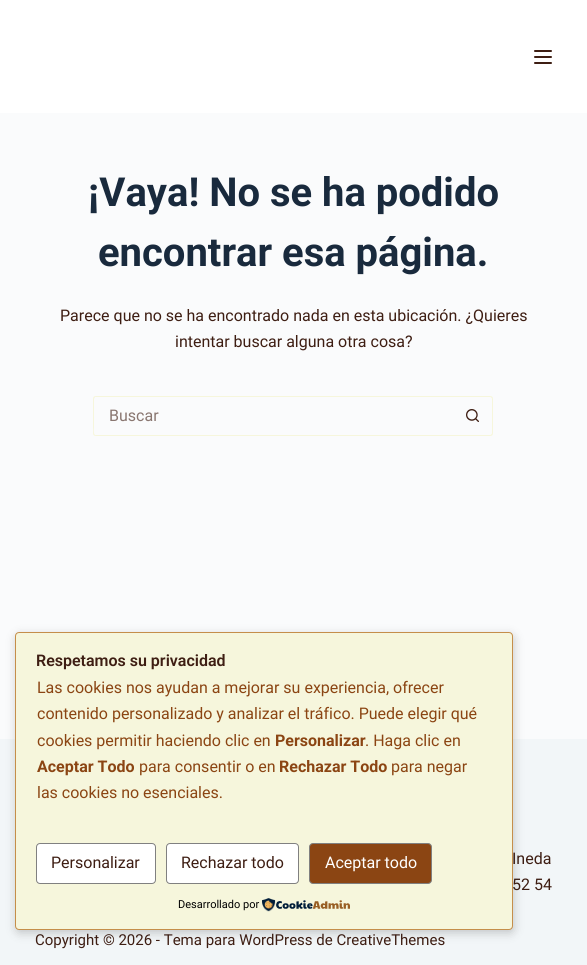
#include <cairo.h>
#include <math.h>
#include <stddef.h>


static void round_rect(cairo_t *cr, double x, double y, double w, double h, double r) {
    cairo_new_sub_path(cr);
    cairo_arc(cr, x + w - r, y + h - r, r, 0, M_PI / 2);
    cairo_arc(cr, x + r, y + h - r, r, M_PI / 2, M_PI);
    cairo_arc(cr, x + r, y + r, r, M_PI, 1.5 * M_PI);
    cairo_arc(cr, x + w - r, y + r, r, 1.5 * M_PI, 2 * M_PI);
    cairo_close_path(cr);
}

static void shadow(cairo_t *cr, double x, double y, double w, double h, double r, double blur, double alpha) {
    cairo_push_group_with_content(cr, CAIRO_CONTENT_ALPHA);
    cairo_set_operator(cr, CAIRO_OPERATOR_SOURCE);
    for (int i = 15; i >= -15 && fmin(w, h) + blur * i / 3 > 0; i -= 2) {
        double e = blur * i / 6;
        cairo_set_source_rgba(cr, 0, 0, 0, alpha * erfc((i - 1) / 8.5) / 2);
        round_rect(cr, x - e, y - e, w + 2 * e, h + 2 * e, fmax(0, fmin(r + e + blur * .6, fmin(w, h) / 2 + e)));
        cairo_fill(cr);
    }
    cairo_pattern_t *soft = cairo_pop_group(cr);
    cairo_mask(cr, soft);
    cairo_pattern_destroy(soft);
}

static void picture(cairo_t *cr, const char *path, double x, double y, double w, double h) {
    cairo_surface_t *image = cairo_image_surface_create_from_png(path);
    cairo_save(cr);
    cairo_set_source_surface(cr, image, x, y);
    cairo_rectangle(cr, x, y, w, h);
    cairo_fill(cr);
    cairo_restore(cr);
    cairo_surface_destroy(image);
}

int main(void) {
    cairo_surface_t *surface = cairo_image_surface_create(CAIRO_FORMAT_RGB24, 587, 965);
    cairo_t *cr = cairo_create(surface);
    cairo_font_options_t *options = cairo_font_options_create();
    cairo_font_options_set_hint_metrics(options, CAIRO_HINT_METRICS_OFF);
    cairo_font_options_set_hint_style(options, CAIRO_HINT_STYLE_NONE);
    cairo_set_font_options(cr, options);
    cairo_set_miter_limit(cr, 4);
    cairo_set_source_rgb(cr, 0.98, 0.984, 0.988);
    cairo_paint(cr);
    cairo_set_source_rgb(cr, 1, 1, 1);
    cairo_rectangle(cr, 0, 0, 587, 113);
    cairo_fill(cr);
    cairo_set_source_rgb(cr, 0.243, 0.118, 0.075);
    round_rect(cr, 534, 50, 18, 2, 1);
    cairo_fill(cr);
    round_rect(cr, 534, 56, 18, 2, 1);
    cairo_fill(cr);
    round_rect(cr, 534, 62, 18, 2, 1);
    cairo_fill(cr);
    cairo_select_font_face(cr, "Roboto", CAIRO_FONT_SLANT_NORMAL, CAIRO_FONT_WEIGHT_BOLD);
    cairo_set_font_size(cr, 40);
    cairo_set_source_rgb(cr, 0.098, 0.165, 0.239);
    cairo_move_to(cr, 88, 206);
    cairo_show_text(cr, "¡Vaya! No se ha podido");
    cairo_move_to(cr, 98, 266);
    cairo_show_text(cr, "encontrar esa página.");
    cairo_select_font_face(cr, "Roboto", CAIRO_FONT_SLANT_NORMAL, CAIRO_FONT_WEIGHT_NORMAL);
    cairo_set_font_size(cr, 16);
    cairo_set_source_rgb(cr, 0.243, 0.118, 0.075);
    cairo_move_to(cr, 60, 321);
    cairo_show_text(cr, "Parece que no se ha encontrado nada en esta ubicación. ¿Quieres");
    cairo_move_to(cr, 175, 347);
    cairo_show_text(cr, "intentar buscar alguna otra cosa?");
    cairo_set_source_rgb(cr, 0.961, 0.961, 0.863);
    cairo_set_fill_rule(cr, CAIRO_FILL_RULE_EVEN_ODD);
    cairo_new_path(cr);
    cairo_move_to(cr, 96, 396);
    cairo_line_to(cr, 453, 396);
    cairo_line_to(cr, 453, 436);
    cairo_line_to(cr, 96, 436);
    cairo_curve_to(cr, 94, 436, 93, 435, 93, 433);
    cairo_line_to(cr, 93, 399);
    cairo_curve_to(cr, 93, 397, 94, 396, 96, 396);
    cairo_close_path(cr);
    cairo_move_to(cr, 96, 397);
    cairo_line_to(cr, 453, 397);
    cairo_line_to(cr, 453, 435);
    cairo_line_to(cr, 95, 435);
    cairo_curve_to(cr, 93, 433, 94, 428, 94, 427);
    cairo_line_to(cr, 94, 399);
    cairo_line_to(cr, 95, 397);
    cairo_close_path(cr);
    cairo_fill(cr);
    cairo_set_source_rgb(cr, 0.537, 0.463, 0.439);
    cairo_move_to(cr, 109, 421);
    cairo_show_text(cr, "Buscar");
    cairo_set_source_rgb(cr, 0.961, 0.961, 0.863);
    cairo_new_path(cr);
    cairo_move_to(cr, 453, 396);
    cairo_line_to(cr, 490, 396);
    cairo_curve_to(cr, 492, 396, 493, 397, 493, 399);
    cairo_line_to(cr, 493, 433);
    cairo_curve_to(cr, 493, 435, 492, 436, 490, 436);
    cairo_line_to(cr, 453, 436);
    cairo_close_path(cr);
    cairo_move_to(cr, 453, 397);
    cairo_line_to(cr, 490, 397);
    cairo_curve_to(cr, 491, 397, 492, 398, 492, 399);
    cairo_line_to(cr, 492, 433);
    cairo_curve_to(cr, 492, 434, 491, 435, 490, 435);
    cairo_line_to(cr, 453, 435);
    cairo_close_path(cr);
    cairo_fill(cr);
    picture(cr, "img1.png", 466, 409, 13, 13);
    cairo_set_source_rgb(cr, 0.949, 0.961, 0.969);
    cairo_rectangle(cr, 0, 739, 587, 226);
    cairo_fill(cr);
    cairo_set_source_rgb(cr, 0.243, 0.118, 0.075);
    cairo_move_to(cr, 512, 864);
    cairo_show_text(cr, "Ineda");
    cairo_move_to(cr, 512, 890);
    cairo_show_text(cr, "52 54");
    cairo_set_font_size(cr, 15);
    cairo_move_to(cr, 35, 945);
    cairo_show_text(cr, "Copyright © 2026 - Tema para WordPress de CreativeThemes");
    cairo_set_source_rgb(cr, 0, 0, 0);
    shadow(cr, 16, 635, 498, 298, 4, 5, 0.2);
    cairo_set_source_rgb(cr, 0.961, 0.961, 0.863);
    round_rect(cr, 15.5, 632.5, 497, 297, 3.5);
    cairo_fill_preserve(cr);
    cairo_set_source_rgb(cr, 0.773, 0.557, 0.29);
    cairo_set_line_width(cr, 1);
    cairo_stroke(cr);
    cairo_select_font_face(cr, "Roboto SemiBold", CAIRO_FONT_SLANT_NORMAL, CAIRO_FONT_WEIGHT_NORMAL);
    cairo_set_font_size(cr, 16);
    cairo_set_source_rgb(cr, 0.243, 0.118, 0.075);
    cairo_move_to(cr, 36, 666);
    cairo_show_text(cr, "Respetamos su privacidad");
    cairo_select_font_face(cr, "Roboto", CAIRO_FONT_SLANT_NORMAL, CAIRO_FONT_WEIGHT_NORMAL);
    cairo_set_source_rgb(cr, 0.545, 0.271, 0.075);
    cairo_move_to(cr, 37, 693);
    cairo_show_text(cr, "Las cookies nos ayudan a mejorar su experiencia, ofrecer");
    cairo_move_to(cr, 37, 719);
    cairo_show_text(cr, "contenido personalizado y analizar el tráfico. Puede elegir qué");
    cairo_move_to(cr, 37, 746);
    cairo_show_text(cr, "cookies permitir haciendo clic en");
    cairo_select_font_face(cr, "Roboto", CAIRO_FONT_SLANT_NORMAL, CAIRO_FONT_WEIGHT_BOLD);
    cairo_move_to(cr, 275, 746);
    cairo_show_text(cr, "Personalizar");
    cairo_select_font_face(cr, "Roboto", CAIRO_FONT_SLANT_NORMAL, CAIRO_FONT_WEIGHT_NORMAL);
    cairo_move_to(cr, 365, 746);
    cairo_show_text(cr, ". Haga clic en");
    cairo_select_font_face(cr, "Roboto", CAIRO_FONT_SLANT_NORMAL, CAIRO_FONT_WEIGHT_BOLD);
    cairo_move_to(cr, 37, 772);
    cairo_show_text(cr, "Aceptar Todo");
    cairo_select_font_face(cr, "Roboto", CAIRO_FONT_SLANT_NORMAL, CAIRO_FONT_WEIGHT_NORMAL);
    cairo_move_to(cr, 139, 772);
    cairo_show_text(cr, "para consentir o en");
    cairo_select_font_face(cr, "Roboto", CAIRO_FONT_SLANT_NORMAL, CAIRO_FONT_WEIGHT_BOLD);
    cairo_move_to(cr, 279, 772);
    cairo_show_text(cr, "Rechazar Todo");
    cairo_select_font_face(cr, "Roboto", CAIRO_FONT_SLANT_NORMAL, CAIRO_FONT_WEIGHT_NORMAL);
    cairo_move_to(cr, 391, 772);
    cairo_show_text(cr, "para negar");
    cairo_move_to(cr, 37, 798);
    cairo_show_text(cr, "las cookies no esenciales.");
    cairo_set_source_rgb(cr, 1, 1, 1);
    round_rect(cr, 36.5, 843.5, 119, 40, 3.5);
    cairo_fill_preserve(cr);
    cairo_set_source_rgb(cr, 0.502, 0.502, 0.502);
    cairo_stroke(cr);
    cairo_set_source_rgb(cr, 0.243, 0.118, 0.075);
    cairo_move_to(cr, 51, 868);
    cairo_show_text(cr, "Personalizar");
    cairo_set_source_rgb(cr, 1, 1, 1);
    round_rect(cr, 166.5, 843.5, 132, 40, 3.5);
    cairo_fill_preserve(cr);
    cairo_set_source_rgb(cr, 0.502, 0.502, 0.502);
    cairo_stroke(cr);
    cairo_set_source_rgb(cr, 0.243, 0.118, 0.075);
    cairo_move_to(cr, 181, 868);
    cairo_show_text(cr, "Rechazar todo");
    cairo_set_source_rgb(cr, 0.545, 0.271, 0.075);
    round_rect(cr, 309.5, 843.5, 122, 40, 3.5);
    cairo_fill_preserve(cr);
    cairo_set_source_rgb(cr, 0.502, 0.502, 0.502);
    cairo_stroke(cr);
    cairo_set_source_rgb(cr, 1, 1, 1);
    cairo_move_to(cr, 325, 868);
    cairo_show_text(cr, "Aceptar todo");
    cairo_set_font_size(cr, 11);
    cairo_set_source_rgb(cr, 0, 0, 0);
    cairo_move_to(cr, 178, 908);
    cairo_show_text(cr, "Desarrollado por");
    picture(cr, "img2.png", 262, 898, 88, 14);
    cairo_surface_write_to_png(surface, "page.png");
    cairo_font_options_destroy(options);
    cairo_destroy(cr);
    cairo_surface_destroy(surface);
    return 0;
}
